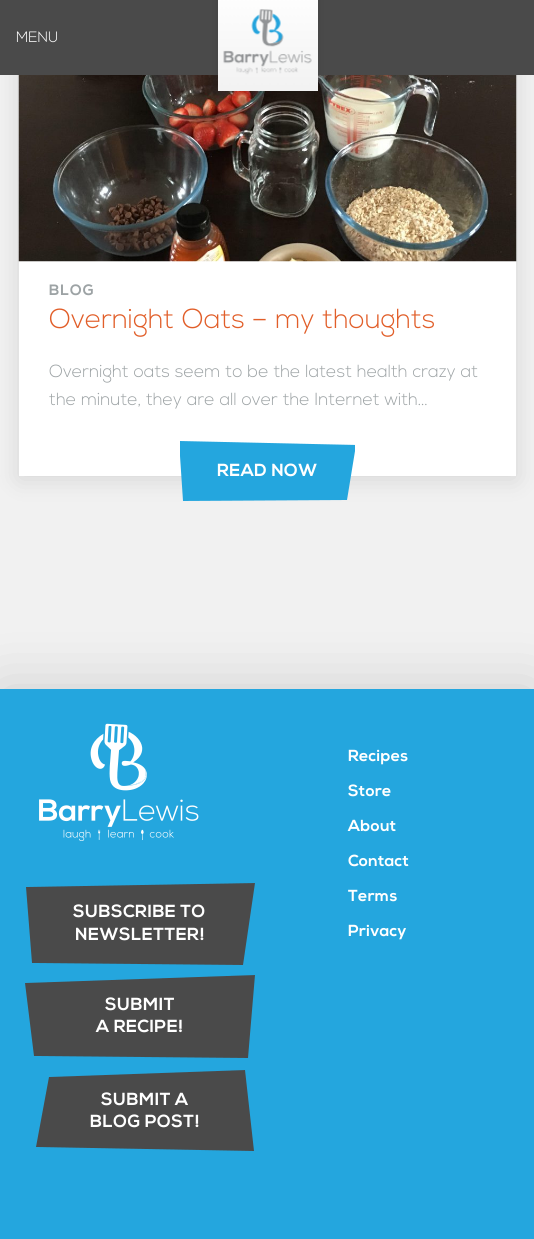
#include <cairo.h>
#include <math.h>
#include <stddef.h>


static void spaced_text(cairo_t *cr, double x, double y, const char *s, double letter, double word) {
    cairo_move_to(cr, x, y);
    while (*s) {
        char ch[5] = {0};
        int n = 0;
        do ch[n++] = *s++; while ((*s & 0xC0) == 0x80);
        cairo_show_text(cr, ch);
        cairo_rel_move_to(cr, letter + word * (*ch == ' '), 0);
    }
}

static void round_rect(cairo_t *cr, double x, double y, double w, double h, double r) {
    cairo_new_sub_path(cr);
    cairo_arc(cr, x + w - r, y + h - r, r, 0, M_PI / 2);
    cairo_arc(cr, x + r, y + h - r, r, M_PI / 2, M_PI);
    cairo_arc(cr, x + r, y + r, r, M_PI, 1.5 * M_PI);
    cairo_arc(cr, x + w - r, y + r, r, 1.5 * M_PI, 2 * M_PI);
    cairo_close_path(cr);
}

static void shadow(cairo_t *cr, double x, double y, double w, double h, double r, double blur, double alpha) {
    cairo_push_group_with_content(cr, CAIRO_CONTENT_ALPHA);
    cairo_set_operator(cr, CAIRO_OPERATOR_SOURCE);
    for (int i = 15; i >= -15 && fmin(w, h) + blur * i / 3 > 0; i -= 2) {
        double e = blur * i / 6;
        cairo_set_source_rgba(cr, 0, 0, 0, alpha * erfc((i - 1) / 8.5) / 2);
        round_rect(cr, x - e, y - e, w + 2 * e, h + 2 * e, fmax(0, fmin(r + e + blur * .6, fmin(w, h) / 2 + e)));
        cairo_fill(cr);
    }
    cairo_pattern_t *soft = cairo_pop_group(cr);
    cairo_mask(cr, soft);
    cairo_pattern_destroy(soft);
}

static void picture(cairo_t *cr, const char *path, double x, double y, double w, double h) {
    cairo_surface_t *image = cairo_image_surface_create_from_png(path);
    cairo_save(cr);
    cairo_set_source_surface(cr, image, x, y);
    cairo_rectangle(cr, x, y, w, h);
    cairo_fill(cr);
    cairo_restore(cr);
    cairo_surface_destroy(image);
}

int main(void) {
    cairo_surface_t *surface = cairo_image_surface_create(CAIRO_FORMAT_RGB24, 534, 1239);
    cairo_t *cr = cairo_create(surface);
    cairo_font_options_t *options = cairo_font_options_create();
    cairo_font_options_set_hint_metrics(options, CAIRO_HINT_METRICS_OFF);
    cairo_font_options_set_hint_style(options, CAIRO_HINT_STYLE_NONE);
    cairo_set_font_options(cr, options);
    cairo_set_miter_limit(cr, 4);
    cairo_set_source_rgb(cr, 0.945, 0.945, 0.945);
    cairo_paint(cr);
    cairo_set_source_rgb(cr, 0, 0, 0);
    shadow(cr, 19, -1, 497, 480, 0, 12.5, 0.12);
    cairo_set_source_rgb(cr, 0.29, 0.29, 0.29);
    cairo_rectangle(cr, 0, 0, 534, 75);
    cairo_fill(cr);
    cairo_select_font_face(cr, "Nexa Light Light", CAIRO_FONT_SLANT_NORMAL, CAIRO_FONT_WEIGHT_NORMAL);
    cairo_set_font_size(cr, 15);
    cairo_set_source_rgb(cr, 1, 1, 1);
    cairo_move_to(cr, 16, 42);
    cairo_show_text(cr, "MENU");
    cairo_rectangle(cr, 19, 261, 497, 215);
    cairo_fill(cr);
    picture(cr, "img2.png", 18, 75, 499, 187);
    cairo_set_source_rgb(cr, 0, 0, 0);
    shadow(cr, 218, -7, 100, 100, 0, 4, 0.1);
    picture(cr, "img1.png", 218, 0, 100, 91);
    cairo_select_font_face(cr, "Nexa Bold", CAIRO_FONT_SLANT_NORMAL, CAIRO_FONT_WEIGHT_BOLD);
    cairo_set_source_rgb(cr, 0.616, 0.639, 0.647);
    spaced_text(cr, 49, 295, "BLOG", 1, 0);
    cairo_select_font_face(cr, "Nexa Light Light", CAIRO_FONT_SLANT_NORMAL, CAIRO_FONT_WEIGHT_NORMAL);
    cairo_set_font_size(cr, 27.5);
    cairo_set_source_rgb(cr, 0.882, 0.369, 0.161);
    cairo_move_to(cr, 49, 328);
    cairo_show_text(cr, "Overnight Oats – my thoughts");
    cairo_set_font_size(cr, 17.5);
    cairo_set_source_rgb(cr, 0.616, 0.639, 0.647);
    cairo_move_to(cr, 49, 377);
    cairo_show_text(cr, "Overnight oats seem to be the latest health crazy at");
    cairo_move_to(cr, 49, 405);
    cairo_show_text(cr, "the minute, they are all over the Internet with...");
    cairo_save(cr);
    cairo_rectangle(cr, 180, 441, 175, 60);
    cairo_clip(cr);
    cairo_set_source_rgb(cr, 0.141, 0.651, 0.871);
    cairo_set_fill_rule(cr, CAIRO_FILL_RULE_EVEN_ODD);
    cairo_new_path(cr);
    cairo_move_to(cr, 179, 441);
    cairo_line_to(cr, 356, 445);
    cairo_line_to(cr, 347, 500);
    cairo_line_to(cr, 183, 501);
    cairo_close_path(cr);
    cairo_fill(cr);
    cairo_restore(cr);
    cairo_select_font_face(cr, "Nexa Bold", CAIRO_FONT_SLANT_NORMAL, CAIRO_FONT_WEIGHT_BOLD);
    cairo_set_source_rgb(cr, 1, 1, 1);
    spaced_text(cr, 217, 476, "READ NOW", 0.5, 0);
    cairo_set_source_rgb(cr, 0, 0, 0);
    shadow(cr, 0, 689, 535, 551, 0, 31, 0.15);
    cairo_set_source_rgb(cr, 0.141, 0.651, 0.871);
    cairo_rectangle(cr, 0, 689, 534, 550);
    cairo_fill(cr);
    picture(cr, "img3.png", 39, 723, 160, 118);
    cairo_set_font_size(cr, 16);
    cairo_set_source_rgb(cr, 1, 1, 1);
    spaced_text(cr, 348, 761, "Recipes", 0.25, 0);
    spaced_text(cr, 348, 796, "Store", 0.25, 0);
    spaced_text(cr, 348, 831, "About", 0.25, 0);
    spaced_text(cr, 348, 866, "Contact", 0.25, 0);
    spaced_text(cr, 348, 901, "Terms", 0.25, 0);
    spaced_text(cr, 348, 936, "Privacy", 0.25, 0);
    cairo_set_source_rgb(cr, 0.29, 0.29, 0.29);
    cairo_set_fill_rule(cr, CAIRO_FILL_RULE_EVEN_ODD);
    cairo_new_path(cr);
    cairo_move_to(cr, 26, 887);
    cairo_line_to(cr, 255, 883);
    cairo_line_to(cr, 243, 965);
    cairo_line_to(cr, 32, 963);
    cairo_close_path(cr);
    cairo_fill(cr);
    cairo_set_font_size(cr, 17.5);
    cairo_set_source_rgb(cr, 1, 1, 1);
    spaced_text(cr, 73, 917, "SUBSCRIBE TO", 0.5, 0);
    spaced_text(cr, 75, 940, "NEWSLETTER!", 0.5, 0);
    cairo_set_source_rgb(cr, 0.29, 0.29, 0.29);
    cairo_new_path(cr);
    cairo_move_to(cr, 25, 983);
    cairo_line_to(cr, 255, 975);
    cairo_line_to(cr, 248, 1058);
    cairo_line_to(cr, 34, 1056);
    cairo_close_path(cr);
    cairo_fill(cr);
    cairo_set_source_rgb(cr, 1, 1, 1);
    spaced_text(cr, 105, 1010, "SUBMIT", 0.5, 0);
    spaced_text(cr, 96, 1032, "A RECIPE!", 0.5, 0);
    cairo_set_source_rgb(cr, 0.29, 0.29, 0.29);
    cairo_new_path(cr);
    cairo_move_to(cr, 49, 1077);
    cairo_line_to(cr, 245, 1070);
    cairo_line_to(cr, 254, 1151);
    cairo_line_to(cr, 36, 1147);
    cairo_close_path(cr);
    cairo_fill(cr);
    cairo_set_source_rgb(cr, 1, 1, 1);
    spaced_text(cr, 101, 1105, "SUBMIT A", 0.5, 0);
    spaced_text(cr, 90, 1127, "BLOG POST!", 0.5, 0);
    cairo_surface_write_to_png(surface, "page.png");
    cairo_font_options_destroy(options);
    cairo_destroy(cr);
    cairo_surface_destroy(surface);
    return 0;
}
